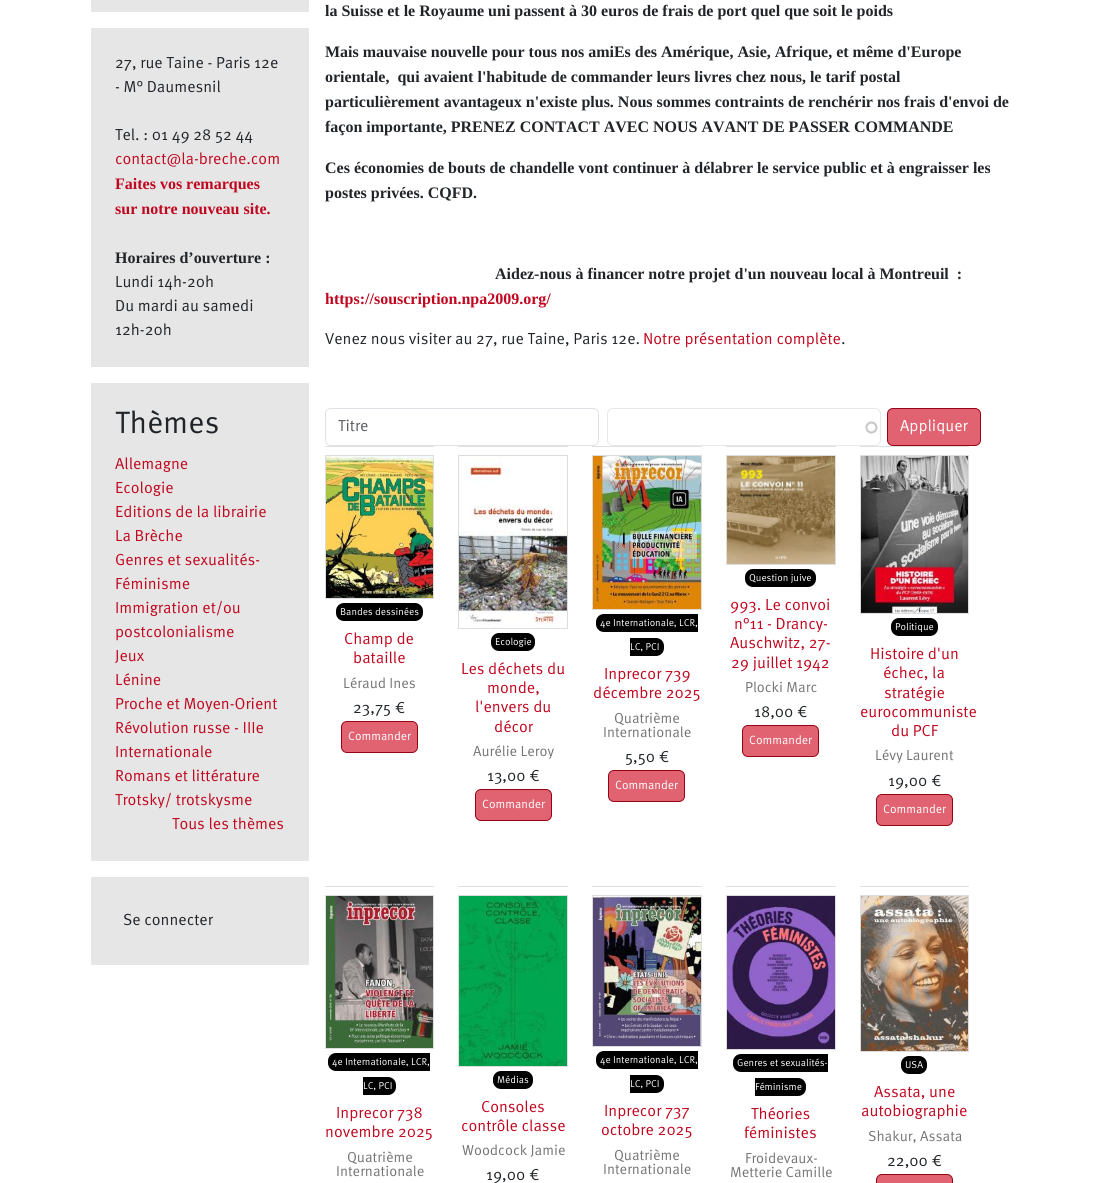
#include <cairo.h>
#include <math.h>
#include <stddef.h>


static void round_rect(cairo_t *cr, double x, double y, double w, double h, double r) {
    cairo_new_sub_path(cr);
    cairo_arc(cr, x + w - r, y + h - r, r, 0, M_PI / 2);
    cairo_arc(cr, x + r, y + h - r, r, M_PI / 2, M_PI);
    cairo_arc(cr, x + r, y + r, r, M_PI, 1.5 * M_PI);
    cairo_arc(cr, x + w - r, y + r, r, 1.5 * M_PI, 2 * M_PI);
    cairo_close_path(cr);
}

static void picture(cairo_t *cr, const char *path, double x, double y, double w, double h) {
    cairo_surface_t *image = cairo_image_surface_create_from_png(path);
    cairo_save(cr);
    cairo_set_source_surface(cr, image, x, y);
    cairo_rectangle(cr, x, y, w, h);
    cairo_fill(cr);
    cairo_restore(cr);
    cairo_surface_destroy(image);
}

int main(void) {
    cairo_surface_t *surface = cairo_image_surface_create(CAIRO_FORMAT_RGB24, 1101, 1183);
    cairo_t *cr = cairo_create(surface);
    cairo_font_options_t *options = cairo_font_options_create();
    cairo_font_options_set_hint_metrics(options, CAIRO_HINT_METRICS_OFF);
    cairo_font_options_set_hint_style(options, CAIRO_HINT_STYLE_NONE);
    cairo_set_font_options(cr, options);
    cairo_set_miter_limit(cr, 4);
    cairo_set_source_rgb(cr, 1, 1, 1);
    cairo_paint(cr);
    cairo_set_source_rgb(cr, 0.902, 0.902, 0.902);
    cairo_rectangle(cr, 91, 0, 218, 12);
    cairo_fill(cr);
    cairo_rectangle(cr, 91, 28, 218, 339);
    cairo_fill(cr);
    cairo_select_font_face(cr, "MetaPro", CAIRO_FONT_SLANT_NORMAL, CAIRO_FONT_WEIGHT_NORMAL);
    cairo_set_font_size(cr, 16);
    cairo_set_source_rgb(cr, 0.129, 0.145, 0.161);
    cairo_move_to(cr, 115, 68);
    cairo_show_text(cr, "27, rue Taine - Paris 12e");
    cairo_move_to(cr, 115, 92);
    cairo_show_text(cr, "- M° Daumesnil");
    cairo_move_to(cr, 115, 140);
    cairo_show_text(cr, "Tel. : 01 49 28 52 44");
    cairo_set_source_rgb(cr, 0.753, 0.031, 0.122);
    cairo_move_to(cr, 115, 164);
    cairo_show_text(cr, "contact@la-breche.com");
    cairo_select_font_face(cr, "Liberation Serif", CAIRO_FONT_SLANT_NORMAL, CAIRO_FONT_WEIGHT_BOLD);
    cairo_move_to(cr, 115, 189);
    cairo_show_text(cr, "Faites vos remarques");
    cairo_move_to(cr, 115, 214);
    cairo_show_text(cr, "sur notre nouveau site.");
    cairo_set_source_rgb(cr, 0.129, 0.145, 0.161);
    cairo_move_to(cr, 115, 263);
    cairo_show_text(cr, "Horaires d’ouverture :");
    cairo_select_font_face(cr, "MetaPro", CAIRO_FONT_SLANT_NORMAL, CAIRO_FONT_WEIGHT_NORMAL);
    cairo_move_to(cr, 115, 287);
    cairo_show_text(cr, "Lundi 14h-20h");
    cairo_move_to(cr, 115, 311);
    cairo_show_text(cr, "Du mardi au samedi");
    cairo_move_to(cr, 115, 335);
    cairo_show_text(cr, "12h-20h");
    cairo_set_source_rgb(cr, 0.902, 0.902, 0.902);
    cairo_rectangle(cr, 91, 383, 218, 478);
    cairo_fill(cr);
    cairo_set_font_size(cr, 31);
    cairo_set_source_rgb(cr, 0.129, 0.145, 0.161);
    cairo_move_to(cr, 115, 433);
    cairo_show_text(cr, "Thèmes");
    cairo_set_font_size(cr, 16);
    cairo_set_source_rgb(cr, 0.753, 0.031, 0.122);
    cairo_move_to(cr, 115, 469);
    cairo_show_text(cr, "Allemagne");
    cairo_move_to(cr, 115, 493);
    cairo_show_text(cr, "Ecologie");
    cairo_move_to(cr, 115, 517);
    cairo_show_text(cr, "Editions de la librairie");
    cairo_move_to(cr, 115, 541);
    cairo_show_text(cr, "La Brèche");
    cairo_move_to(cr, 115, 565);
    cairo_show_text(cr, "Genres et sexualités-");
    cairo_move_to(cr, 115, 589);
    cairo_show_text(cr, "Féminisme");
    cairo_move_to(cr, 115, 613);
    cairo_show_text(cr, "Immigration et/ou");
    cairo_move_to(cr, 115, 637);
    cairo_show_text(cr, "postcolonialisme");
    cairo_move_to(cr, 115, 661);
    cairo_show_text(cr, "Jeux");
    cairo_move_to(cr, 115, 685);
    cairo_show_text(cr, "Lénine");
    cairo_move_to(cr, 115, 709);
    cairo_show_text(cr, "Proche et Moyen-Orient");
    cairo_move_to(cr, 115, 733);
    cairo_show_text(cr, "Révolution russe - IIIe");
    cairo_move_to(cr, 115, 757);
    cairo_show_text(cr, "Internationale");
    cairo_move_to(cr, 115, 781);
    cairo_show_text(cr, "Romans et littérature");
    cairo_move_to(cr, 115, 805);
    cairo_show_text(cr, "Trotsky/ trotskysme");
    cairo_move_to(cr, 172, 829);
    cairo_show_text(cr, "Tous les thèmes");
    cairo_set_source_rgb(cr, 0.902, 0.902, 0.902);
    cairo_rectangle(cr, 91, 877, 218, 88);
    cairo_fill(cr);
    cairo_set_source_rgb(cr, 0.129, 0.145, 0.161);
    cairo_move_to(cr, 123, 925);
    cairo_show_text(cr, "Se connecter");
    cairo_select_font_face(cr, "Liberation Serif", CAIRO_FONT_SLANT_NORMAL, CAIRO_FONT_WEIGHT_BOLD);
    cairo_move_to(cr, 325, 16);
    cairo_show_text(cr, "la Suisse et le Royaume uni passent à 30 euros de frais de port quel que soit le poids");
    cairo_move_to(cr, 325, 57);
    cairo_show_text(cr, "Mais mauvaise nouvelle pour tous nos amiEs des Amérique, Asie, Afrique, et même d'Europe");
    cairo_move_to(cr, 325, 82);
    cairo_show_text(cr, "orientale,  qui avaient l'habitude de commander leurs livres chez nous, le tarif postal");
    cairo_move_to(cr, 325, 107);
    cairo_show_text(cr, "particulièrement avantageux n'existe plus. Nous sommes contraints de renchérir nos frais d'envoi de");
    cairo_move_to(cr, 325, 132);
    cairo_show_text(cr, "façon importante, PRENEZ CONTACT AVEC NOUS AVANT DE PASSER COMMANDE");
    cairo_move_to(cr, 325, 173);
    cairo_show_text(cr, "Ces économies de bouts de chandelle vont continuer à délabrer le service public et à engraisser les");
    cairo_move_to(cr, 325, 198);
    cairo_show_text(cr, "postes privées. CQFD.");
    cairo_move_to(cr, 495, 279);
    cairo_show_text(cr, "Aidez-nous à financer notre projet d'un nouveau local à Montreuil  :");
    cairo_set_source_rgb(cr, 0.753, 0.031, 0.122);
    cairo_move_to(cr, 325, 304);
    cairo_show_text(cr, "https://souscription.npa2009.org/");
    cairo_select_font_face(cr, "MetaPro", CAIRO_FONT_SLANT_NORMAL, CAIRO_FONT_WEIGHT_NORMAL);
    cairo_set_source_rgb(cr, 0.129, 0.145, 0.161);
    cairo_move_to(cr, 325, 344);
    cairo_show_text(cr, "Venez nous visiter au 27, rue Taine, Paris 12e.");
    cairo_set_source_rgb(cr, 0.753, 0.031, 0.122);
    cairo_move_to(cr, 643, 344);
    cairo_show_text(cr, "Notre présentation complète");
    cairo_set_source_rgb(cr, 0.129, 0.145, 0.161);
    cairo_move_to(cr, 841, 344);
    cairo_show_text(cr, ".");
    round_rect(cr, 325.5, 408.5, 273, 37, 5.5);
    cairo_set_source_rgb(cr, 0.871, 0.886, 0.902);
    cairo_set_line_width(cr, 1);
    cairo_stroke(cr);
    cairo_set_source_rgb(cr, 0.349, 0.361, 0.373);
    cairo_move_to(cr, 338, 431);
    cairo_show_text(cr, "Titre");
    picture(cr, "img1.png", 865, 421, 13, 13);
    round_rect(cr, 607.5, 408.5, 273, 37, 5.5);
    cairo_set_source_rgb(cr, 0.902, 0.914, 0.925);
    cairo_stroke(cr);
    cairo_set_source_rgb(cr, 0.882, 0.388, 0.447);
    round_rect(cr, 887.5, 408.5, 93, 37, 5.5);
    cairo_fill_preserve(cr);
    cairo_set_source_rgb(cr, 0.588, 0.016, 0.086);
    cairo_stroke(cr);
    cairo_set_source_rgb(cr, 1, 1, 1);
    cairo_move_to(cr, 900, 431);
    cairo_show_text(cr, "Appliquer");
    cairo_set_source_rgb(cr, 0.882, 0.878, 0.878);
    cairo_rectangle(cr, 325, 446, 109, 1);
    cairo_fill(cr);
    cairo_rectangle(cr, 325.5, 455.5, 108, 143);
    cairo_set_source_rgb(cr, 0.867, 0.867, 0.867);
    cairo_stroke(cr);
    picture(cr, "img2.png", 326, 456, 107, 142);
    cairo_set_source_rgb(cr, 0, 0, 0);
    round_rect(cr, 336, 603, 87, 18, 8);
    cairo_fill(cr);
    cairo_set_font_size(cr, 10);
    cairo_set_source_rgb(cr, 1, 1, 1);
    cairo_move_to(cr, 340, 615);
    cairo_show_text(cr, "Bandes dessinées");
    cairo_set_font_size(cr, 16);
    cairo_set_source_rgb(cr, 0.753, 0.031, 0.122);
    cairo_move_to(cr, 344, 644);
    cairo_show_text(cr, "Champ de");
    cairo_move_to(cr, 353, 663);
    cairo_show_text(cr, "bataille");
    cairo_set_font_size(cr, 14.5);
    cairo_set_source_rgb(cr, 0.459, 0.459, 0.459);
    cairo_move_to(cr, 343, 688);
    cairo_show_text(cr, "Léraud Ines");
    cairo_set_font_size(cr, 16);
    cairo_set_source_rgb(cr, 0.129, 0.145, 0.161);
    cairo_move_to(cr, 353, 713);
    cairo_show_text(cr, "23,75 €");
    cairo_set_source_rgb(cr, 0.882, 0.388, 0.447);
    round_rect(cr, 341.5, 721.5, 76, 31, 5.5);
    cairo_fill_preserve(cr);
    cairo_set_source_rgb(cr, 0.588, 0.016, 0.086);
    cairo_stroke(cr);
    cairo_set_font_size(cr, 12);
    cairo_set_source_rgb(cr, 1, 1, 1);
    cairo_move_to(cr, 348, 740);
    cairo_show_text(cr, "Commander");
    cairo_set_source_rgb(cr, 0.882, 0.878, 0.878);
    cairo_rectangle(cr, 458, 446, 110, 1);
    cairo_fill(cr);
    cairo_rectangle(cr, 458.5, 455.5, 109, 173);
    cairo_set_source_rgb(cr, 0.867, 0.867, 0.867);
    cairo_stroke(cr);
    picture(cr, "img3.png", 459, 456, 108, 170);
    cairo_set_source_rgb(cr, 0, 0, 0);
    round_rect(cr, 491, 633, 44, 18, 8);
    cairo_fill(cr);
    cairo_set_font_size(cr, 10);
    cairo_set_source_rgb(cr, 1, 1, 1);
    cairo_move_to(cr, 495, 645);
    cairo_show_text(cr, "Ecologie");
    cairo_set_font_size(cr, 16);
    cairo_set_source_rgb(cr, 0.753, 0.031, 0.122);
    cairo_move_to(cr, 461, 674);
    cairo_show_text(cr, "Les déchets du");
    cairo_move_to(cr, 487, 693);
    cairo_show_text(cr, "monde,");
    cairo_move_to(cr, 475, 712);
    cairo_show_text(cr, "l'envers du");
    cairo_move_to(cr, 494, 732);
    cairo_show_text(cr, "décor");
    cairo_set_font_size(cr, 14.5);
    cairo_set_source_rgb(cr, 0.459, 0.459, 0.459);
    cairo_move_to(cr, 473, 756);
    cairo_show_text(cr, "Aurélie Leroy");
    cairo_set_font_size(cr, 16);
    cairo_set_source_rgb(cr, 0.129, 0.145, 0.161);
    cairo_move_to(cr, 487, 781);
    cairo_show_text(cr, "13,00 €");
    cairo_set_source_rgb(cr, 0.882, 0.388, 0.447);
    round_rect(cr, 475.5, 789.5, 76, 31, 5.5);
    cairo_fill_preserve(cr);
    cairo_set_source_rgb(cr, 0.588, 0.016, 0.086);
    cairo_stroke(cr);
    cairo_set_font_size(cr, 12);
    cairo_set_source_rgb(cr, 1, 1, 1);
    cairo_move_to(cr, 482, 808);
    cairo_show_text(cr, "Commander");
    cairo_set_source_rgb(cr, 0.882, 0.878, 0.878);
    cairo_rectangle(cr, 592, 446, 110, 1);
    cairo_fill(cr);
    cairo_rectangle(cr, 592.5, 455.5, 109, 154);
    cairo_set_source_rgb(cr, 0.867, 0.867, 0.867);
    cairo_stroke(cr);
    picture(cr, "img4.png", 593, 456, 108, 153);
    cairo_set_source_rgb(cr, 0, 0, 0);
    cairo_new_path(cr);
    cairo_move_to(cr, 604, 614);
    cairo_line_to(cr, 698, 614);
    cairo_line_to(cr, 698, 632);
    cairo_line_to(cr, 604, 632);
    cairo_curve_to(cr, 599.5, 632, 596, 628.5, 596, 624);
    cairo_line_to(cr, 596, 622);
    cairo_curve_to(cr, 596, 617.5, 599.5, 614, 604, 614);
    cairo_close_path(cr);
    cairo_fill(cr);
    cairo_set_font_size(cr, 10);
    cairo_set_source_rgb(cr, 1, 1, 1);
    cairo_move_to(cr, 600, 626);
    cairo_show_text(cr, "4e Internationale, LCR,");
    cairo_set_source_rgb(cr, 0, 0, 0);
    cairo_new_path(cr);
    cairo_move_to(cr, 630, 638);
    cairo_line_to(cr, 656, 638);
    cairo_curve_to(cr, 660.5, 638, 664, 641.5, 664, 646);
    cairo_line_to(cr, 664, 648);
    cairo_curve_to(cr, 664, 652.5, 660.5, 656, 656, 656);
    cairo_line_to(cr, 630, 656);
    cairo_close_path(cr);
    cairo_fill(cr);
    cairo_set_source_rgb(cr, 1, 1, 1);
    cairo_move_to(cr, 630, 650);
    cairo_show_text(cr, "LC, PCI");
    cairo_set_font_size(cr, 16);
    cairo_set_source_rgb(cr, 0.753, 0.031, 0.122);
    cairo_move_to(cr, 604, 679);
    cairo_show_text(cr, "Inprecor 739");
    cairo_move_to(cr, 593, 698);
    cairo_show_text(cr, "décembre 2025");
    cairo_set_font_size(cr, 14.5);
    cairo_set_source_rgb(cr, 0.459, 0.459, 0.459);
    cairo_move_to(cr, 614, 723);
    cairo_show_text(cr, "Quatrième");
    cairo_move_to(cr, 603, 737);
    cairo_show_text(cr, "Internationale");
    cairo_set_font_size(cr, 16);
    cairo_set_source_rgb(cr, 0.129, 0.145, 0.161);
    cairo_move_to(cr, 625, 762);
    cairo_show_text(cr, "5,50 €");
    cairo_set_source_rgb(cr, 0.882, 0.388, 0.447);
    round_rect(cr, 608.5, 770.5, 76, 31, 5.5);
    cairo_fill_preserve(cr);
    cairo_set_source_rgb(cr, 0.588, 0.016, 0.086);
    cairo_stroke(cr);
    cairo_set_font_size(cr, 12);
    cairo_set_source_rgb(cr, 1, 1, 1);
    cairo_move_to(cr, 615, 789);
    cairo_show_text(cr, "Commander");
    cairo_set_source_rgb(cr, 0.882, 0.878, 0.878);
    cairo_rectangle(cr, 726, 446, 110, 1);
    cairo_fill(cr);
    cairo_rectangle(cr, 726.5, 455.5, 109, 109);
    cairo_set_source_rgb(cr, 0.867, 0.867, 0.867);
    cairo_stroke(cr);
    picture(cr, "img5.png", 727, 456, 108, 108);
    cairo_set_source_rgb(cr, 0, 0, 0);
    round_rect(cr, 745, 569, 71, 18, 8);
    cairo_fill(cr);
    cairo_set_font_size(cr, 10);
    cairo_set_source_rgb(cr, 1, 1, 1);
    cairo_move_to(cr, 749, 581);
    cairo_show_text(cr, "Question juive");
    cairo_set_font_size(cr, 16);
    cairo_set_source_rgb(cr, 0.753, 0.031, 0.122);
    cairo_move_to(cr, 730, 610);
    cairo_show_text(cr, "993. Le convoi");
    cairo_move_to(cr, 734, 629);
    cairo_show_text(cr, "n°11 - Drancy-");
    cairo_move_to(cr, 730, 648);
    cairo_show_text(cr, "Auschwitz, 27-");
    cairo_move_to(cr, 731, 668);
    cairo_show_text(cr, "29 juillet 1942");
    cairo_set_font_size(cr, 14.5);
    cairo_set_source_rgb(cr, 0.459, 0.459, 0.459);
    cairo_move_to(cr, 745, 692);
    cairo_show_text(cr, "Plocki Marc");
    cairo_set_font_size(cr, 16);
    cairo_set_source_rgb(cr, 0.129, 0.145, 0.161);
    cairo_move_to(cr, 754, 717);
    cairo_show_text(cr, "18,00 €");
    cairo_set_source_rgb(cr, 0.882, 0.388, 0.447);
    round_rect(cr, 742.5, 725.5, 76, 31, 5.5);
    cairo_fill_preserve(cr);
    cairo_set_source_rgb(cr, 0.588, 0.016, 0.086);
    cairo_stroke(cr);
    cairo_set_font_size(cr, 12);
    cairo_set_source_rgb(cr, 1, 1, 1);
    cairo_move_to(cr, 749, 744);
    cairo_show_text(cr, "Commander");
    cairo_set_source_rgb(cr, 0.882, 0.878, 0.878);
    cairo_rectangle(cr, 860, 446, 109, 1);
    cairo_fill(cr);
    cairo_rectangle(cr, 860.5, 455.5, 108, 158);
    cairo_set_source_rgb(cr, 0.867, 0.867, 0.867);
    cairo_stroke(cr);
    picture(cr, "img6.png", 861, 456, 107, 157);
    cairo_set_source_rgb(cr, 0, 0, 0);
    round_rect(cr, 891, 618, 47, 18, 8);
    cairo_fill(cr);
    cairo_set_font_size(cr, 10);
    cairo_set_source_rgb(cr, 1, 1, 1);
    cairo_move_to(cr, 895, 630);
    cairo_show_text(cr, "Politique");
    cairo_set_font_size(cr, 16);
    cairo_set_source_rgb(cr, 0.753, 0.031, 0.122);
    cairo_move_to(cr, 870, 659);
    cairo_show_text(cr, "Histoire d'un");
    cairo_move_to(cr, 883, 678);
    cairo_show_text(cr, "échec, la");
    cairo_move_to(cr, 884, 698);
    cairo_show_text(cr, "stratégie");
    cairo_move_to(cr, 860, 717);
    cairo_show_text(cr, "eurocommuniste");
    cairo_move_to(cr, 891, 736);
    cairo_show_text(cr, "du PCF");
    cairo_set_font_size(cr, 14.5);
    cairo_set_source_rgb(cr, 0.459, 0.459, 0.459);
    cairo_move_to(cr, 875, 760);
    cairo_show_text(cr, "Lévy Laurent");
    cairo_set_font_size(cr, 16);
    cairo_set_source_rgb(cr, 0.129, 0.145, 0.161);
    cairo_move_to(cr, 888, 786);
    cairo_show_text(cr, "19,00 €");
    cairo_set_source_rgb(cr, 0.882, 0.388, 0.447);
    round_rect(cr, 876.5, 794.5, 76, 31, 5.5);
    cairo_fill_preserve(cr);
    cairo_set_source_rgb(cr, 0.588, 0.016, 0.086);
    cairo_stroke(cr);
    cairo_set_font_size(cr, 12);
    cairo_set_source_rgb(cr, 1, 1, 1);
    cairo_move_to(cr, 883, 813);
    cairo_show_text(cr, "Commander");
    cairo_set_source_rgb(cr, 0.882, 0.878, 0.878);
    cairo_rectangle(cr, 325, 886, 109, 1);
    cairo_fill(cr);
    cairo_rectangle(cr, 325.5, 895.5, 108, 153);
    cairo_set_source_rgb(cr, 0.867, 0.867, 0.867);
    cairo_stroke(cr);
    picture(cr, "img7.png", 326, 896, 107, 152);
    cairo_set_source_rgb(cr, 0, 0, 0);
    cairo_new_path(cr);
    cairo_move_to(cr, 336, 1053);
    cairo_line_to(cr, 430, 1053);
    cairo_line_to(cr, 430, 1071);
    cairo_line_to(cr, 336, 1071);
    cairo_curve_to(cr, 331.5, 1071, 328, 1067.5, 328, 1063);
    cairo_line_to(cr, 328, 1061);
    cairo_curve_to(cr, 328, 1056.5, 331.5, 1053, 336, 1053);
    cairo_close_path(cr);
    cairo_fill(cr);
    cairo_set_font_size(cr, 10);
    cairo_set_source_rgb(cr, 1, 1, 1);
    cairo_move_to(cr, 332, 1065);
    cairo_show_text(cr, "4e Internationale, LCR,");
    cairo_set_source_rgb(cr, 0, 0, 0);
    cairo_new_path(cr);
    cairo_move_to(cr, 363, 1077);
    cairo_line_to(cr, 388, 1077);
    cairo_curve_to(cr, 392.5, 1077, 396, 1080.5, 396, 1085);
    cairo_line_to(cr, 396, 1087);
    cairo_curve_to(cr, 396, 1091.5, 392.5, 1095, 388, 1095);
    cairo_line_to(cr, 363, 1095);
    cairo_close_path(cr);
    cairo_fill(cr);
    cairo_set_source_rgb(cr, 1, 1, 1);
    cairo_move_to(cr, 363, 1089);
    cairo_show_text(cr, "LC, PCI");
    cairo_set_font_size(cr, 16);
    cairo_set_source_rgb(cr, 0.753, 0.031, 0.122);
    cairo_move_to(cr, 336, 1118);
    cairo_show_text(cr, "Inprecor 738");
    cairo_move_to(cr, 325, 1137);
    cairo_show_text(cr, "novembre 2025");
    cairo_set_font_size(cr, 14.5);
    cairo_set_source_rgb(cr, 0.459, 0.459, 0.459);
    cairo_move_to(cr, 347, 1162);
    cairo_show_text(cr, "Quatrième");
    cairo_move_to(cr, 336, 1176);
    cairo_show_text(cr, "Internationale");
    cairo_set_source_rgb(cr, 0.882, 0.878, 0.878);
    cairo_rectangle(cr, 458, 886, 110, 1);
    cairo_fill(cr);
    cairo_rectangle(cr, 458.5, 895.5, 109, 171);
    cairo_set_source_rgb(cr, 0.867, 0.867, 0.867);
    cairo_stroke(cr);
    picture(cr, "img8.png", 459, 896, 108, 170);
    cairo_set_source_rgb(cr, 0, 0, 0);
    round_rect(cr, 493, 1071, 40, 18, 8);
    cairo_fill(cr);
    cairo_set_font_size(cr, 10);
    cairo_set_source_rgb(cr, 1, 1, 1);
    cairo_move_to(cr, 497, 1083);
    cairo_show_text(cr, "Médias");
    cairo_set_font_size(cr, 16);
    cairo_set_source_rgb(cr, 0.753, 0.031, 0.122);
    cairo_move_to(cr, 481, 1112);
    cairo_show_text(cr, "Consoles");
    cairo_move_to(cr, 461, 1131);
    cairo_show_text(cr, "contrôle classe");
    cairo_set_font_size(cr, 14.5);
    cairo_set_source_rgb(cr, 0.459, 0.459, 0.459);
    cairo_move_to(cr, 462, 1155);
    cairo_show_text(cr, "Woodcock Jamie");
    cairo_set_font_size(cr, 16);
    cairo_set_source_rgb(cr, 0.129, 0.145, 0.161);
    cairo_move_to(cr, 486, 1180);
    cairo_show_text(cr, "19,00 €");
    cairo_set_source_rgb(cr, 0.882, 0.878, 0.878);
    cairo_rectangle(cr, 592, 886, 110, 1);
    cairo_fill(cr);
    cairo_rectangle(cr, 592.5, 895.5, 109, 151);
    cairo_set_source_rgb(cr, 0.867, 0.867, 0.867);
    cairo_stroke(cr);
    picture(cr, "img9.png", 593, 896, 108, 150);
    cairo_set_source_rgb(cr, 0, 0, 0);
    cairo_new_path(cr);
    cairo_move_to(cr, 604, 1051);
    cairo_line_to(cr, 698, 1051);
    cairo_line_to(cr, 698, 1069);
    cairo_line_to(cr, 604, 1069);
    cairo_curve_to(cr, 599.5, 1069, 596, 1065.5, 596, 1061);
    cairo_line_to(cr, 596, 1059);
    cairo_curve_to(cr, 596, 1054.5, 599.5, 1051, 604, 1051);
    cairo_close_path(cr);
    cairo_fill(cr);
    cairo_set_font_size(cr, 10);
    cairo_set_source_rgb(cr, 1, 1, 1);
    cairo_move_to(cr, 600, 1063);
    cairo_show_text(cr, "4e Internationale, LCR,");
    cairo_set_source_rgb(cr, 0, 0, 0);
    cairo_new_path(cr);
    cairo_move_to(cr, 630, 1075);
    cairo_line_to(cr, 656, 1075);
    cairo_curve_to(cr, 660.5, 1075, 664, 1078.5, 664, 1083);
    cairo_line_to(cr, 664, 1085);
    cairo_curve_to(cr, 664, 1089.5, 660.5, 1093, 656, 1093);
    cairo_line_to(cr, 630, 1093);
    cairo_close_path(cr);
    cairo_fill(cr);
    cairo_set_source_rgb(cr, 1, 1, 1);
    cairo_move_to(cr, 630, 1087);
    cairo_show_text(cr, "LC, PCI");
    cairo_set_font_size(cr, 16);
    cairo_set_source_rgb(cr, 0.753, 0.031, 0.122);
    cairo_move_to(cr, 604, 1116);
    cairo_show_text(cr, "Inprecor 737");
    cairo_move_to(cr, 601, 1135);
    cairo_show_text(cr, "octobre 2025");
    cairo_set_font_size(cr, 14.5);
    cairo_set_source_rgb(cr, 0.459, 0.459, 0.459);
    cairo_move_to(cr, 614, 1160);
    cairo_show_text(cr, "Quatrième");
    cairo_move_to(cr, 603, 1174);
    cairo_show_text(cr, "Internationale");
    cairo_set_source_rgb(cr, 0.882, 0.878, 0.878);
    cairo_rectangle(cr, 726, 886, 110, 1);
    cairo_fill(cr);
    cairo_rectangle(cr, 726.5, 895.5, 109, 154);
    cairo_set_source_rgb(cr, 0.867, 0.867, 0.867);
    cairo_stroke(cr);
    picture(cr, "img10.png", 727, 896, 108, 153);
    cairo_set_source_rgb(cr, 0, 0, 0);
    cairo_new_path(cr);
    cairo_move_to(cr, 741, 1054);
    cairo_line_to(cr, 828, 1054);
    cairo_line_to(cr, 828, 1072);
    cairo_line_to(cr, 741, 1072);
    cairo_curve_to(cr, 736.5, 1072, 733, 1068.5, 733, 1064);
    cairo_line_to(cr, 733, 1062);
    cairo_curve_to(cr, 733, 1057.5, 736.5, 1054, 741, 1054);
    cairo_close_path(cr);
    cairo_fill(cr);
    cairo_set_font_size(cr, 10);
    cairo_set_source_rgb(cr, 1, 1, 1);
    cairo_move_to(cr, 737, 1066);
    cairo_show_text(cr, "Genres et sexualités-");
    cairo_set_source_rgb(cr, 0, 0, 0);
    cairo_new_path(cr);
    cairo_move_to(cr, 755, 1078);
    cairo_line_to(cr, 798, 1078);
    cairo_curve_to(cr, 802.5, 1078, 806, 1081.5, 806, 1086);
    cairo_line_to(cr, 806, 1088);
    cairo_curve_to(cr, 806, 1092.5, 802.5, 1096, 798, 1096);
    cairo_line_to(cr, 755, 1096);
    cairo_close_path(cr);
    cairo_fill(cr);
    cairo_set_source_rgb(cr, 1, 1, 1);
    cairo_move_to(cr, 755, 1090);
    cairo_show_text(cr, "Féminisme");
    cairo_set_font_size(cr, 16);
    cairo_set_source_rgb(cr, 0.753, 0.031, 0.122);
    cairo_move_to(cr, 751, 1119);
    cairo_show_text(cr, "Théories");
    cairo_move_to(cr, 744, 1138);
    cairo_show_text(cr, "féministes");
    cairo_set_font_size(cr, 14.5);
    cairo_set_source_rgb(cr, 0.459, 0.459, 0.459);
    cairo_move_to(cr, 745, 1163);
    cairo_show_text(cr, "Froidevaux-");
    cairo_move_to(cr, 730, 1177);
    cairo_show_text(cr, "Metterie Camille");
    cairo_set_source_rgb(cr, 0.882, 0.878, 0.878);
    cairo_rectangle(cr, 860, 886, 109, 1);
    cairo_fill(cr);
    cairo_rectangle(cr, 860.5, 895.5, 108, 156);
    cairo_set_source_rgb(cr, 0.867, 0.867, 0.867);
    cairo_stroke(cr);
    picture(cr, "img11.png", 861, 896, 107, 155);
    cairo_set_source_rgb(cr, 0, 0, 0);
    round_rect(cr, 901, 1056, 26, 18, 8);
    cairo_fill(cr);
    cairo_set_font_size(cr, 10);
    cairo_set_source_rgb(cr, 1, 1, 1);
    cairo_move_to(cr, 905, 1068);
    cairo_show_text(cr, "USA");
    cairo_set_font_size(cr, 16);
    cairo_set_source_rgb(cr, 0.753, 0.031, 0.122);
    cairo_move_to(cr, 874, 1097);
    cairo_show_text(cr, "Assata, une");
    cairo_move_to(cr, 861, 1116);
    cairo_show_text(cr, "autobiographie");
    cairo_set_font_size(cr, 14.5);
    cairo_set_source_rgb(cr, 0.459, 0.459, 0.459);
    cairo_move_to(cr, 868, 1141);
    cairo_show_text(cr, "Shakur, Assata");
    cairo_set_font_size(cr, 16);
    cairo_set_source_rgb(cr, 0.129, 0.145, 0.161);
    cairo_move_to(cr, 887, 1166);
    cairo_show_text(cr, "22,00 €");
    cairo_set_source_rgb(cr, 0.882, 0.388, 0.447);
    round_rect(cr, 876.5, 1174.5, 76, 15, 5.5);
    cairo_fill_preserve(cr);
    cairo_set_source_rgb(cr, 0.588, 0.016, 0.086);
    cairo_stroke(cr);
    cairo_surface_write_to_png(surface, "page.png");
    cairo_font_options_destroy(options);
    cairo_destroy(cr);
    cairo_surface_destroy(surface);
    return 0;
}
